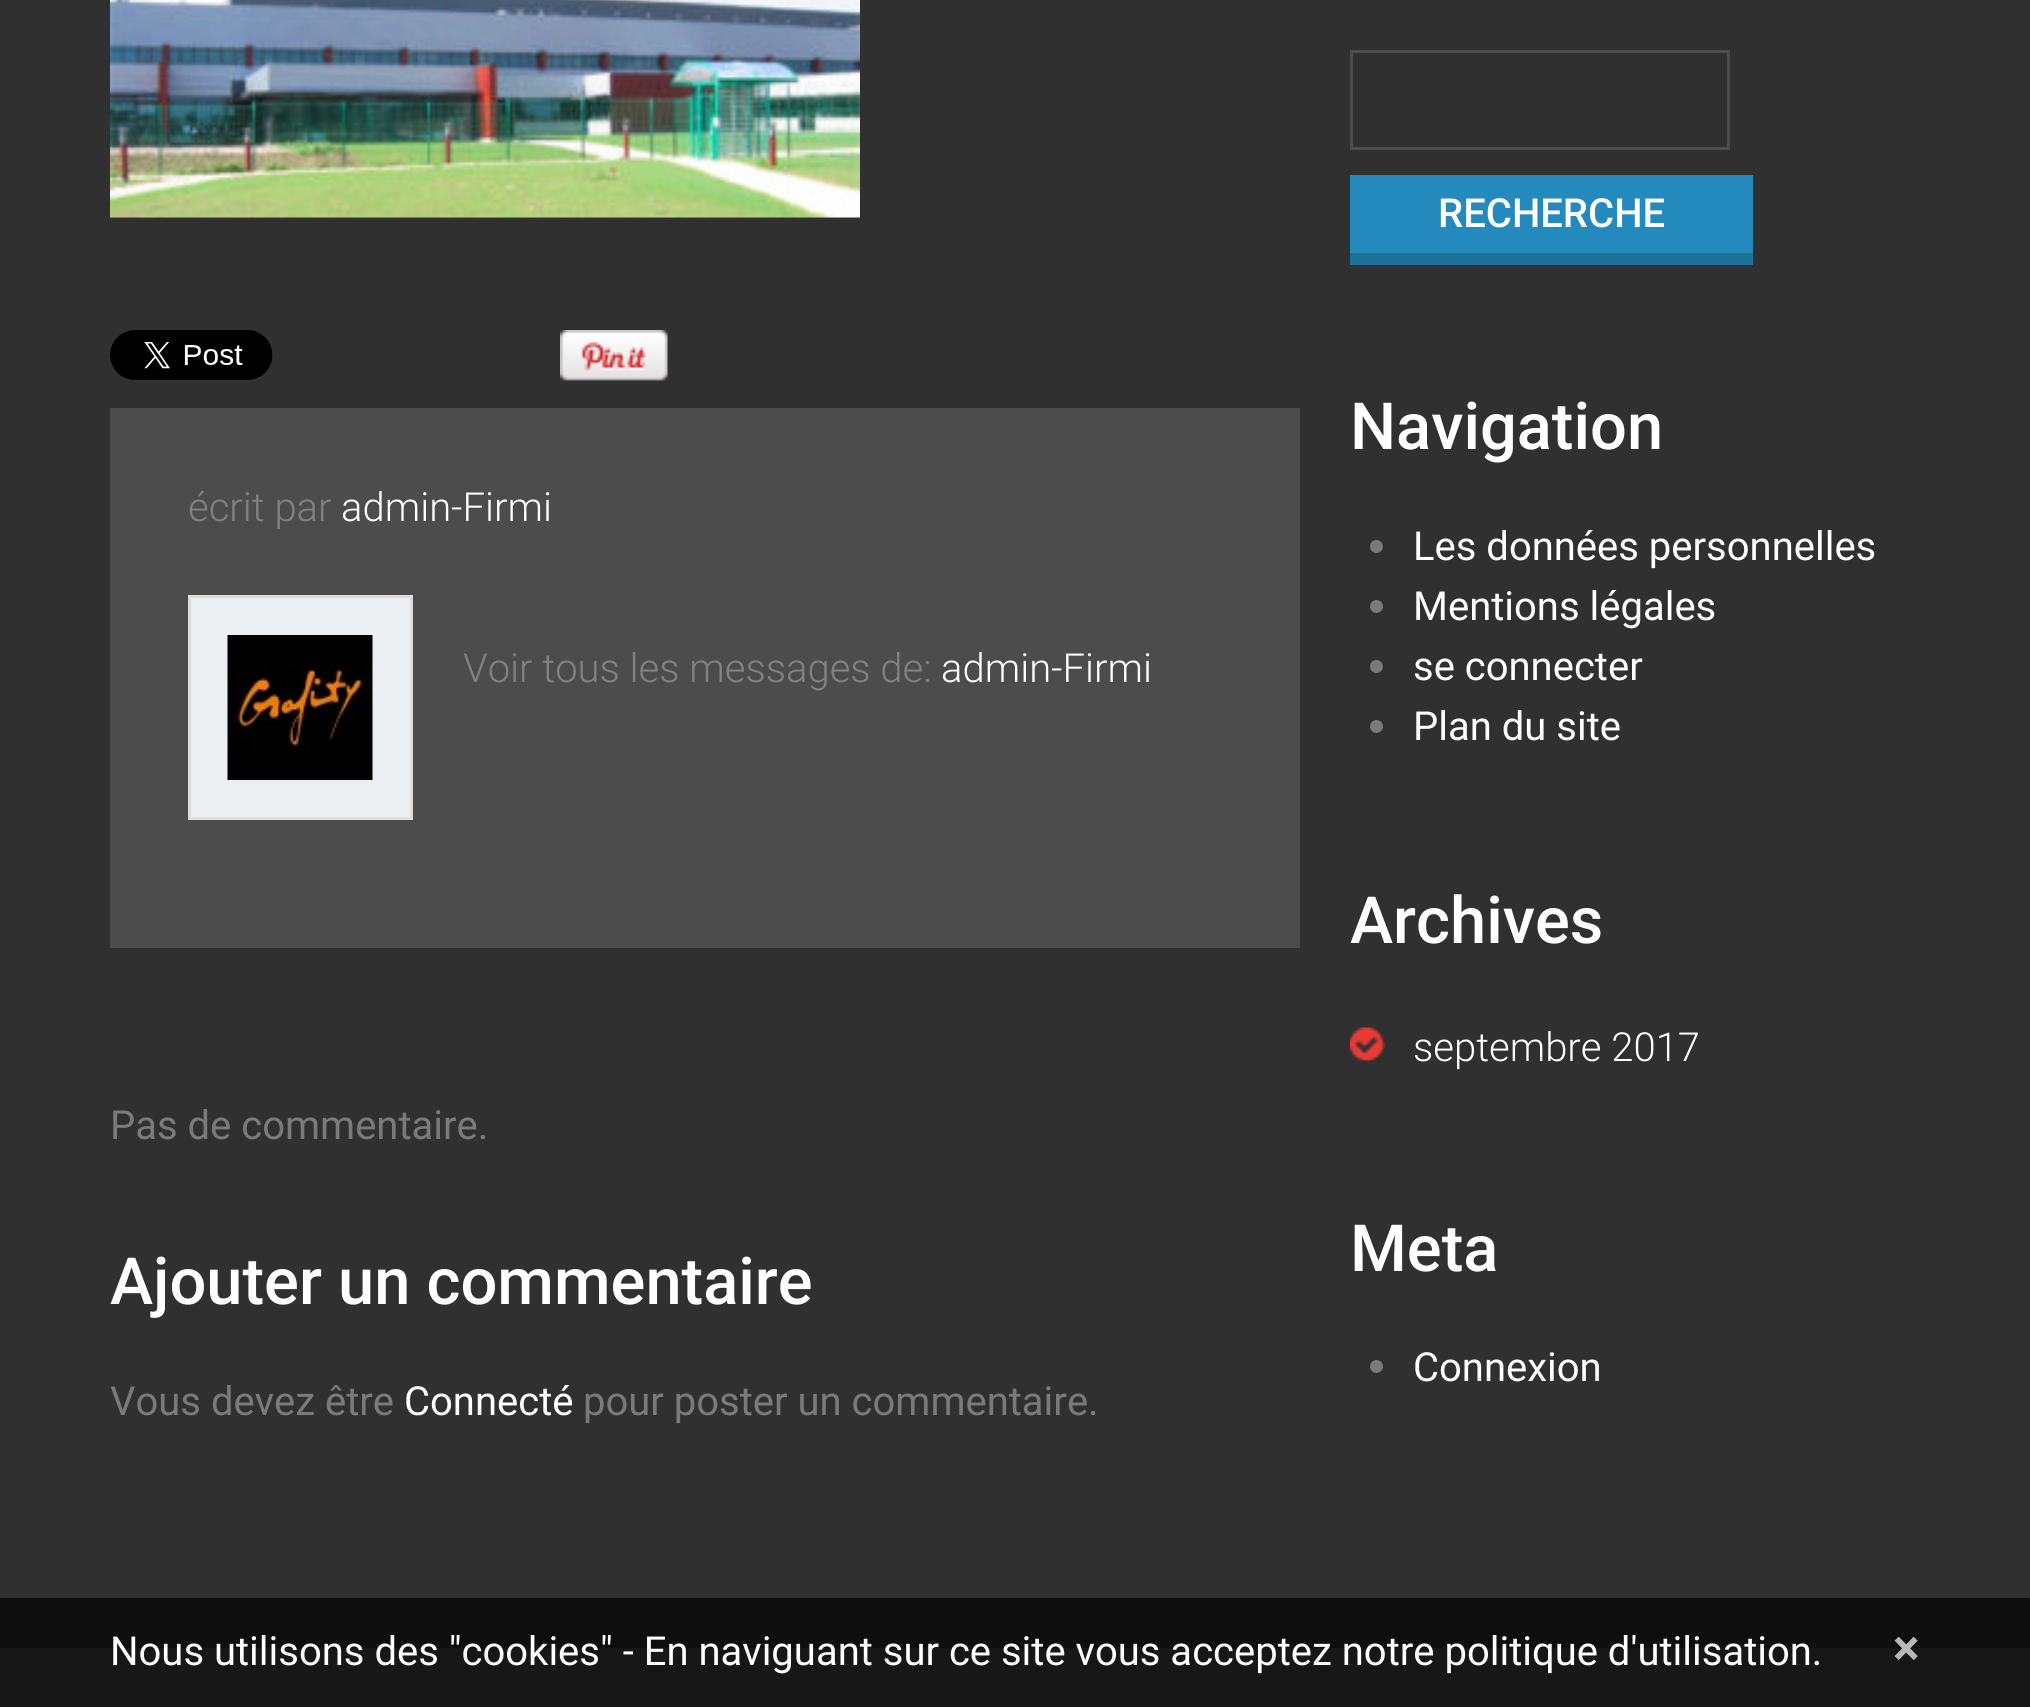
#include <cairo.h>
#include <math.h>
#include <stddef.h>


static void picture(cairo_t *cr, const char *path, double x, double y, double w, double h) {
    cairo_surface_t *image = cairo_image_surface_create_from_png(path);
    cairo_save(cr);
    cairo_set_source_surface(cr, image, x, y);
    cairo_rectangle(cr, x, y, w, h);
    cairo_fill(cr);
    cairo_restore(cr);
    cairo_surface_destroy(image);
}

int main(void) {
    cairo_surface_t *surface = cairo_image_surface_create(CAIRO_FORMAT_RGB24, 2030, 1707);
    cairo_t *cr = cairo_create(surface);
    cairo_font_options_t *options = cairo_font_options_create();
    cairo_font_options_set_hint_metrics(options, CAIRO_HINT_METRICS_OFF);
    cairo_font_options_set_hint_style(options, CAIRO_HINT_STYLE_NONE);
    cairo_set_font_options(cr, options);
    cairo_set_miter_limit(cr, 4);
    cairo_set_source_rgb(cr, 0.188, 0.188, 0.188);
    cairo_paint(cr);
    cairo_set_source_rgb(cr, 0.055, 0.055, 0.055);
    cairo_rectangle(cr, 0, 1598, 2030, 50);
    cairo_fill(cr);
    picture(cr, "img1.png", 110, 0, 750, 218);
    picture(cr, "img2.png", 110, 330, 163, 50);
    picture(cr, "img3.png", 560, 330, 108, 51);
    cairo_set_source_rgb(cr, 0.298, 0.298, 0.298);
    cairo_rectangle(cr, 110, 408, 1190, 540);
    cairo_fill(cr);
    cairo_select_font_face(cr, "Roboto Light", CAIRO_FONT_SLANT_NORMAL, CAIRO_FONT_WEIGHT_NORMAL);
    cairo_set_font_size(cr, 40);
    cairo_set_source_rgb(cr, 0.51, 0.51, 0.51);
    cairo_move_to(cr, 188, 521);
    cairo_show_text(cr, "écrit par");
    cairo_set_source_rgb(cr, 1, 1, 1);
    cairo_move_to(cr, 341, 521);
    cairo_show_text(cr, "admin-Firmi");
    cairo_set_source_rgb(cr, 0.922, 0.937, 0.949);
    cairo_rectangle(cr, 189.5, 596.5, 222, 222);
    cairo_fill_preserve(cr);
    cairo_set_source_rgb(cr, 0.867, 0.867, 0.867);
    cairo_set_line_width(cr, 3);
    cairo_stroke(cr);
    picture(cr, "img4.png", 227, 635, 146, 145);
    cairo_set_source_rgb(cr, 0.51, 0.51, 0.51);
    cairo_move_to(cr, 463, 682);
    cairo_show_text(cr, "Voir tous les messages de:");
    cairo_set_source_rgb(cr, 1, 1, 1);
    cairo_move_to(cr, 941, 682);
    cairo_show_text(cr, "admin-Firmi");
    cairo_select_font_face(cr, "Roboto", CAIRO_FONT_SLANT_NORMAL, CAIRO_FONT_WEIGHT_NORMAL);
    cairo_set_source_rgb(cr, 0.478, 0.478, 0.478);
    cairo_move_to(cr, 110, 1139);
    cairo_show_text(cr, "Pas de commentaire.");
    cairo_select_font_face(cr, "Roboto Medium", CAIRO_FONT_SLANT_NORMAL, CAIRO_FONT_WEIGHT_NORMAL);
    cairo_set_font_size(cr, 65);
    cairo_set_source_rgb(cr, 1, 1, 1);
    cairo_move_to(cr, 110, 1304);
    cairo_show_text(cr, "Ajouter un commentaire");
    cairo_select_font_face(cr, "Roboto", CAIRO_FONT_SLANT_NORMAL, CAIRO_FONT_WEIGHT_NORMAL);
    cairo_set_font_size(cr, 40);
    cairo_set_source_rgb(cr, 0.478, 0.478, 0.478);
    cairo_move_to(cr, 110, 1415);
    cairo_show_text(cr, "Vous devez être");
    cairo_set_source_rgb(cr, 1, 1, 1);
    cairo_move_to(cr, 404, 1415);
    cairo_show_text(cr, "Connecté");
    cairo_set_source_rgb(cr, 0.478, 0.478, 0.478);
    cairo_move_to(cr, 583, 1415);
    cairo_show_text(cr, "pour poster un commentaire.");
    cairo_rectangle(cr, 1351.5, 51.5, 377, 97);
    cairo_set_source_rgb(cr, 0.298, 0.298, 0.298);
    cairo_stroke(cr);
    cairo_set_source_rgb(cr, 0.141, 0.541, 0.741);
    cairo_rectangle(cr, 1350, 175, 403, 78);
    cairo_fill(cr);
    cairo_set_source_rgb(cr, 0.106, 0.451, 0.596);
    cairo_rectangle(cr, 1350, 253, 403, 12);
    cairo_fill(cr);
    cairo_select_font_face(cr, "Roboto Medium", CAIRO_FONT_SLANT_NORMAL, CAIRO_FONT_WEIGHT_NORMAL);
    cairo_set_source_rgb(cr, 1, 1, 1);
    cairo_move_to(cr, 1438, 227);
    cairo_show_text(cr, "RECHERCHE");
    cairo_set_font_size(cr, 65);
    cairo_move_to(cr, 1350, 449);
    cairo_show_text(cr, "Navigation");
    cairo_set_source_rgb(cr, 0.478, 0.478, 0.478);
    cairo_new_path(cr);
    cairo_arc(cr, 1376.5, 546.5, 6.5, 0, 2 * M_PI);
    cairo_fill(cr);
    cairo_select_font_face(cr, "Roboto", CAIRO_FONT_SLANT_NORMAL, CAIRO_FONT_WEIGHT_NORMAL);
    cairo_set_font_size(cr, 40);
    cairo_set_source_rgb(cr, 1, 1, 1);
    cairo_move_to(cr, 1413, 560);
    cairo_show_text(cr, "Les données personnelles");
    cairo_set_source_rgb(cr, 0.478, 0.478, 0.478);
    cairo_new_path(cr);
    cairo_arc(cr, 1376.5, 606.5, 6.5, 0, 2 * M_PI);
    cairo_fill(cr);
    cairo_set_source_rgb(cr, 1, 1, 1);
    cairo_move_to(cr, 1413, 620);
    cairo_show_text(cr, "Mentions légales");
    cairo_set_source_rgb(cr, 0.478, 0.478, 0.478);
    cairo_new_path(cr);
    cairo_arc(cr, 1376.5, 666.5, 6.5, 0, 2 * M_PI);
    cairo_fill(cr);
    cairo_set_source_rgb(cr, 1, 1, 1);
    cairo_move_to(cr, 1413, 680);
    cairo_show_text(cr, "se connecter");
    cairo_set_source_rgb(cr, 0.478, 0.478, 0.478);
    cairo_new_path(cr);
    cairo_arc(cr, 1376.5, 726.5, 6.5, 0, 2 * M_PI);
    cairo_fill(cr);
    cairo_set_source_rgb(cr, 1, 1, 1);
    cairo_move_to(cr, 1413, 740);
    cairo_show_text(cr, "Plan du site");
    cairo_select_font_face(cr, "Roboto Medium", CAIRO_FONT_SLANT_NORMAL, CAIRO_FONT_WEIGHT_NORMAL);
    cairo_set_font_size(cr, 65);
    cairo_move_to(cr, 1350, 943);
    cairo_show_text(cr, "Archives");
    picture(cr, "img5.png", 1350, 1027, 35, 36);
    cairo_select_font_face(cr, "Roboto Light", CAIRO_FONT_SLANT_NORMAL, CAIRO_FONT_WEIGHT_NORMAL);
    cairo_set_font_size(cr, 40);
    cairo_move_to(cr, 1413, 1061);
    cairo_show_text(cr, "septembre 2017");
    cairo_select_font_face(cr, "Roboto Medium", CAIRO_FONT_SLANT_NORMAL, CAIRO_FONT_WEIGHT_NORMAL);
    cairo_set_font_size(cr, 65);
    cairo_move_to(cr, 1350, 1271);
    cairo_show_text(cr, "Meta");
    cairo_set_source_rgb(cr, 0.478, 0.478, 0.478);
    cairo_new_path(cr);
    cairo_arc(cr, 1376.5, 1366.5, 6.5, 0, 2 * M_PI);
    cairo_fill(cr);
    cairo_select_font_face(cr, "Roboto", CAIRO_FONT_SLANT_NORMAL, CAIRO_FONT_WEIGHT_NORMAL);
    cairo_set_font_size(cr, 40);
    cairo_set_source_rgb(cr, 1, 1, 1);
    cairo_move_to(cr, 1413, 1381);
    cairo_show_text(cr, "Connexion");
    cairo_set_source_rgb(cr, 0.09, 0.09, 0.09);
    cairo_rectangle(cr, 0, 1648, 2030, 59);
    cairo_fill(cr);
    cairo_set_source_rgb(cr, 1, 1, 1);
    cairo_move_to(cr, 110, 1665);
    cairo_show_text(cr, "Nous utilisons des \"cookies\" - En naviguant sur ce site vous acceptez notre politique d'utilisation.");
    cairo_select_font_face(cr, "Roboto", CAIRO_FONT_SLANT_NORMAL, CAIRO_FONT_WEIGHT_BOLD);
    cairo_set_font_size(cr, 50);
    cairo_set_source_rgb(cr, 0.722, 0.722, 0.722);
    cairo_move_to(cr, 1893, 1665);
    cairo_show_text(cr, "×");
    cairo_surface_write_to_png(surface, "page.png");
    cairo_font_options_destroy(options);
    cairo_destroy(cr);
    cairo_surface_destroy(surface);
    return 0;
}
